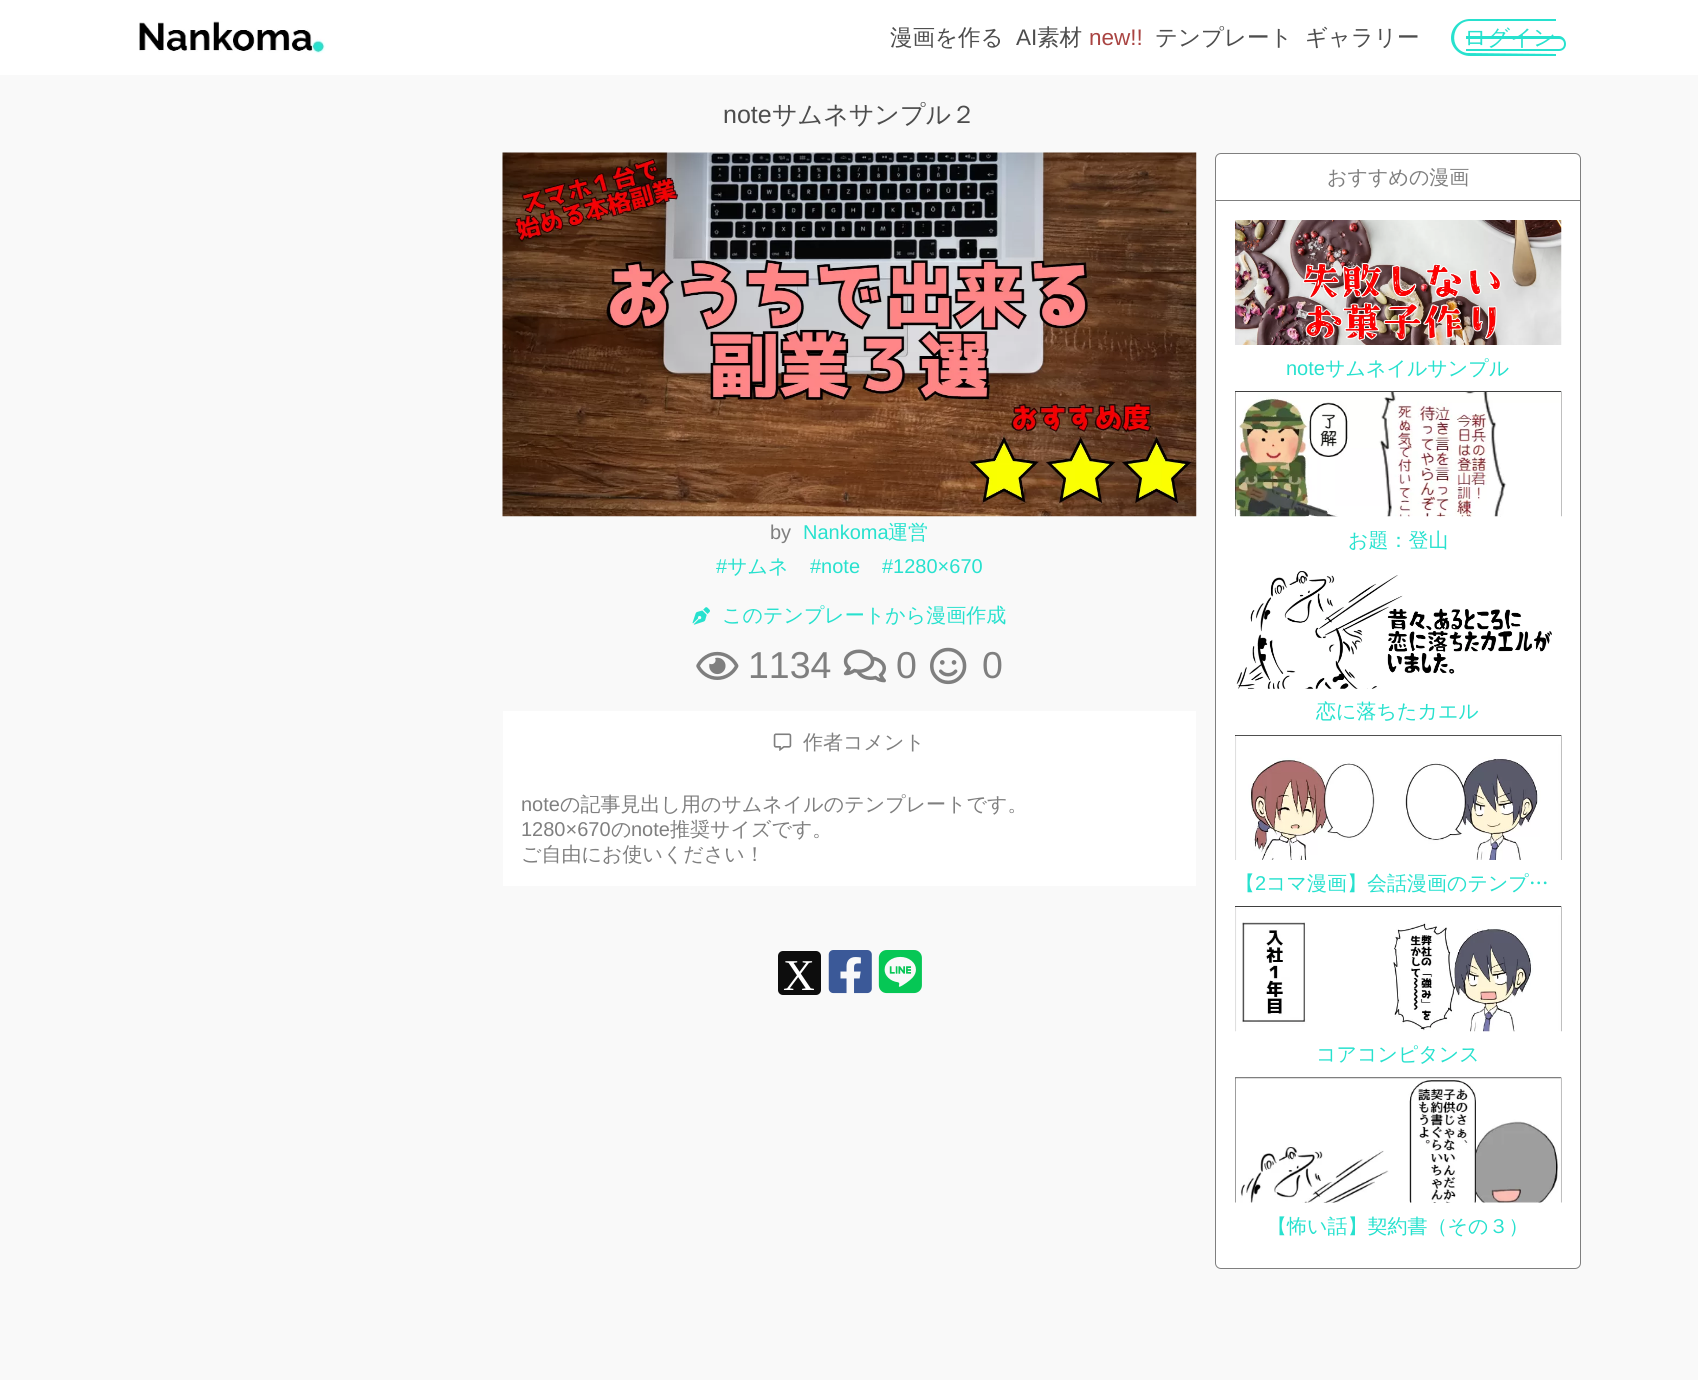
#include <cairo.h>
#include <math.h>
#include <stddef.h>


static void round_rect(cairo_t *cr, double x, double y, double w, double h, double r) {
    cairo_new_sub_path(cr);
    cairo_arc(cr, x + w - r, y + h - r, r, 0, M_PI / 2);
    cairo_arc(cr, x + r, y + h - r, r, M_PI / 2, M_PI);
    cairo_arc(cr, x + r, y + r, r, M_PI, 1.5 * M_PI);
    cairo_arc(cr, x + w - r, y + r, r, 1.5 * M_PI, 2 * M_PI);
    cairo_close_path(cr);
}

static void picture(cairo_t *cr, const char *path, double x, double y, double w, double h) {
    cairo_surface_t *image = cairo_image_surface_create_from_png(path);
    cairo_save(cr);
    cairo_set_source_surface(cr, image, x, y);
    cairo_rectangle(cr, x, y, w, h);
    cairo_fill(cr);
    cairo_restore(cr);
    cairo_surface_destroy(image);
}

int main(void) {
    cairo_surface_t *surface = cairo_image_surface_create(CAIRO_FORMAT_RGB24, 1698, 1380);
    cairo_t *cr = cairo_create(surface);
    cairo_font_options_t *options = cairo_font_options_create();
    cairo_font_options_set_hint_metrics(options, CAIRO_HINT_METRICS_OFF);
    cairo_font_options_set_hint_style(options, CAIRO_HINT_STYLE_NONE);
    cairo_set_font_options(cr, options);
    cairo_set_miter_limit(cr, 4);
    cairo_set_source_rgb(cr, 1, 1, 1);
    cairo_paint(cr);
    picture(cr, "img1.png", 139, 21, 187, 33);
    cairo_select_font_face(cr, "WenQuanYi Zen Hei Medium", CAIRO_FONT_SLANT_NORMAL, CAIRO_FONT_WEIGHT_NORMAL);
    cairo_set_font_size(cr, 22.5);
    cairo_set_source_rgb(cr, 0.302, 0.302, 0.302);
    cairo_move_to(cr, 890, 45);
    cairo_show_text(cr, "漫画を作る");
    cairo_select_font_face(cr, "Liberation Sans", CAIRO_FONT_SLANT_NORMAL, CAIRO_FONT_WEIGHT_NORMAL);
    cairo_move_to(cr, 1016, 45);
    cairo_show_text(cr, "AI");
    cairo_select_font_face(cr, "WenQuanYi Zen Hei Medium", CAIRO_FONT_SLANT_NORMAL, CAIRO_FONT_WEIGHT_NORMAL);
    cairo_move_to(cr, 1037, 45);
    cairo_show_text(cr, "素材");
    cairo_select_font_face(cr, "Liberation Sans", CAIRO_FONT_SLANT_NORMAL, CAIRO_FONT_WEIGHT_NORMAL);
    cairo_set_source_rgb(cr, 0.663, 0.267, 0.259);
    cairo_move_to(cr, 1089, 45);
    cairo_show_text(cr, "new!!");
    cairo_select_font_face(cr, "WenQuanYi Zen Hei Medium", CAIRO_FONT_SLANT_NORMAL, CAIRO_FONT_WEIGHT_NORMAL);
    cairo_set_source_rgb(cr, 0.302, 0.302, 0.302);
    cairo_move_to(cr, 1155, 45);
    cairo_show_text(cr, "テンプレート");
    cairo_move_to(cr, 1305, 45);
    cairo_show_text(cr, "ギャラリー");
    cairo_set_source_rgb(cr, 0.153, 0.882, 0.808);
    cairo_set_fill_rule(cr, CAIRO_FILL_RULE_EVEN_ODD);
    cairo_new_path(cr);
    cairo_move_to(cr, 1470, 19);
    cairo_line_to(cr, 1556, 19);
    cairo_line_to(cr, 1556, 56);
    cairo_line_to(cr, 1470, 56);
    cairo_curve_to(cr, 1460, 56, 1451, 48, 1451, 38);
    cairo_curve_to(cr, 1451, 27, 1460, 19, 1470, 19);
    cairo_close_path(cr);
    cairo_move_to(cr, 1470, 21);
    cairo_line_to(cr, 1556, 21);
    cairo_line_to(cr, 1556, 54);
    cairo_line_to(cr, 1467, 53);
    cairo_curve_to(cr, 1448, 50, 1451, 21, 1470, 21);
    cairo_close_path(cr);
    cairo_fill(cr);
    cairo_new_path(cr);
    cairo_move_to(cr, 1466, 36);
    cairo_line_to(cr, 1559, 36);
    cairo_curve_to(cr, 1563, 36, 1566, 40, 1566, 44);
    cairo_curve_to(cr, 1566, 48, 1563, 51, 1559, 51);
    cairo_line_to(cr, 1466, 51);
    cairo_close_path(cr);
    cairo_move_to(cr, 1466, 39);
    cairo_line_to(cr, 1559, 39);
    cairo_curve_to(cr, 1562, 39, 1564, 41, 1564, 44);
    cairo_curve_to(cr, 1564, 47, 1562, 49, 1559, 49);
    cairo_line_to(cr, 1466, 49);
    cairo_close_path(cr);
    cairo_fill(cr);
    cairo_move_to(cr, 1464, 45);
    cairo_show_text(cr, "ログイン");
    cairo_set_source_rgb(cr, 0.973, 0.973, 0.973);
    cairo_rectangle(cr, 0, 75, 1698, 1305);
    cairo_fill(cr);
    cairo_select_font_face(cr, "Liberation Sans", CAIRO_FONT_SLANT_NORMAL, CAIRO_FONT_WEIGHT_NORMAL);
    cairo_set_font_size(cr, 25);
    cairo_set_source_rgb(cr, 0.302, 0.302, 0.302);
    cairo_move_to(cr, 723, 123);
    cairo_show_text(cr, "note");
    cairo_select_font_face(cr, "WenQuanYi Zen Hei Medium", CAIRO_FONT_SLANT_NORMAL, CAIRO_FONT_WEIGHT_NORMAL);
    cairo_move_to(cr, 772, 123);
    cairo_show_text(cr, "サムネサンプル２");
    picture(cr, "img2.png", 502, 152, 695, 365);
    cairo_select_font_face(cr, "Liberation Sans", CAIRO_FONT_SLANT_NORMAL, CAIRO_FONT_WEIGHT_NORMAL);
    cairo_set_font_size(cr, 20);
    cairo_set_source_rgb(cr, 0.498, 0.498, 0.498);
    cairo_move_to(cr, 770, 539);
    cairo_show_text(cr, "by");
    cairo_set_source_rgb(cr, 0.153, 0.882, 0.808);
    cairo_move_to(cr, 803, 539);
    cairo_show_text(cr, "Nankoma");
    cairo_select_font_face(cr, "WenQuanYi Zen Hei Medium", CAIRO_FONT_SLANT_NORMAL, CAIRO_FONT_WEIGHT_NORMAL);
    cairo_move_to(cr, 888, 539);
    cairo_show_text(cr, "運営");
    cairo_select_font_face(cr, "Liberation Sans", CAIRO_FONT_SLANT_NORMAL, CAIRO_FONT_WEIGHT_NORMAL);
    cairo_move_to(cr, 716, 573);
    cairo_show_text(cr, "#");
    cairo_select_font_face(cr, "WenQuanYi Zen Hei Medium", CAIRO_FONT_SLANT_NORMAL, CAIRO_FONT_WEIGHT_NORMAL);
    cairo_move_to(cr, 727, 573);
    cairo_show_text(cr, "サムネ");
    cairo_select_font_face(cr, "Liberation Sans", CAIRO_FONT_SLANT_NORMAL, CAIRO_FONT_WEIGHT_NORMAL);
    cairo_move_to(cr, 810, 573);
    cairo_show_text(cr, "#note");
    cairo_move_to(cr, 882, 573);
    cairo_show_text(cr, "#1280×670");
    picture(cr, "img3.png", 692, 607, 18, 18);
    cairo_select_font_face(cr, "WenQuanYi Zen Hei Medium", CAIRO_FONT_SLANT_NORMAL, CAIRO_FONT_WEIGHT_NORMAL);
    cairo_move_to(cr, 722, 622);
    cairo_show_text(cr, "このテンプレートから漫画作成");
    picture(cr, "img4.png", 696, 651, 43, 29);
    cairo_select_font_face(cr, "Liberation Sans", CAIRO_FONT_SLANT_NORMAL, CAIRO_FONT_WEIGHT_NORMAL);
    cairo_set_font_size(cr, 37.5);
    cairo_set_source_rgb(cr, 0.498, 0.498, 0.498);
    cairo_move_to(cr, 748, 678);
    cairo_show_text(cr, "1134");
    picture(cr, "img5.png", 843, 649, 43, 34);
    cairo_move_to(cr, 896, 678);
    cairo_show_text(cr, "0");
    picture(cr, "img6.png", 930, 647, 37, 38);
    cairo_move_to(cr, 982, 678);
    cairo_show_text(cr, "0");
    cairo_set_source_rgb(cr, 1, 1, 1);
    cairo_rectangle(cr, 503, 711, 693, 175);
    cairo_fill(cr);
    picture(cr, "img7.png", 773, 733, 19, 18);
    cairo_select_font_face(cr, "WenQuanYi Zen Hei Medium", CAIRO_FONT_SLANT_NORMAL, CAIRO_FONT_WEIGHT_NORMAL);
    cairo_set_font_size(cr, 20);
    cairo_set_source_rgb(cr, 0.498, 0.498, 0.498);
    cairo_move_to(cr, 803, 749);
    cairo_show_text(cr, "作者コメント");
    cairo_select_font_face(cr, "Liberation Sans", CAIRO_FONT_SLANT_NORMAL, CAIRO_FONT_WEIGHT_NORMAL);
    cairo_move_to(cr, 521, 811);
    cairo_show_text(cr, "note");
    cairo_select_font_face(cr, "WenQuanYi Zen Hei Medium", CAIRO_FONT_SLANT_NORMAL, CAIRO_FONT_WEIGHT_NORMAL);
    cairo_move_to(cr, 560, 811);
    cairo_show_text(cr, "の記事見出し用のサムネイルのテンプレートです。");
    cairo_select_font_face(cr, "Liberation Sans", CAIRO_FONT_SLANT_NORMAL, CAIRO_FONT_WEIGHT_NORMAL);
    cairo_move_to(cr, 521, 836);
    cairo_show_text(cr, "1280×670");
    cairo_select_font_face(cr, "WenQuanYi Zen Hei Medium", CAIRO_FONT_SLANT_NORMAL, CAIRO_FONT_WEIGHT_NORMAL);
    cairo_move_to(cr, 611, 836);
    cairo_show_text(cr, "の");
    cairo_select_font_face(cr, "Liberation Sans", CAIRO_FONT_SLANT_NORMAL, CAIRO_FONT_WEIGHT_NORMAL);
    cairo_move_to(cr, 631, 836);
    cairo_show_text(cr, "note");
    cairo_select_font_face(cr, "WenQuanYi Zen Hei Medium", CAIRO_FONT_SLANT_NORMAL, CAIRO_FONT_WEIGHT_NORMAL);
    cairo_move_to(cr, 670, 836);
    cairo_show_text(cr, "推奨サイズです。");
    cairo_move_to(cr, 521, 861);
    cairo_show_text(cr, "ご自由にお使いください！");
    cairo_set_source_rgb(cr, 0.051, 0.051, 0.051);
    round_rect(cr, 778, 951, 43, 44, 5);
    cairo_fill(cr);
    cairo_select_font_face(cr, "Liberation Serif", CAIRO_FONT_SLANT_NORMAL, CAIRO_FONT_WEIGHT_NORMAL);
    cairo_set_font_size(cr, 44);
    cairo_set_source_rgb(cr, 1, 1, 1);
    cairo_move_to(cr, 783, 990);
    cairo_show_text(cr, "X");
    picture(cr, "img8.png", 828, 950, 44, 44);
    picture(cr, "img9.png", 878, 950, 44, 44);
    round_rect(cr, 1215.5, 153.5, 365, 1115, 5.5);
    cairo_fill_preserve(cr);
    cairo_set_source_rgb(cr, 0.498, 0.498, 0.498);
    cairo_set_line_width(cr, 1);
    cairo_stroke(cr);
    cairo_select_font_face(cr, "WenQuanYi Zen Hei Medium", CAIRO_FONT_SLANT_NORMAL, CAIRO_FONT_WEIGHT_NORMAL);
    cairo_set_font_size(cr, 20);
    cairo_move_to(cr, 1327, 184);
    cairo_show_text(cr, "おすすめの漫画");
    cairo_rectangle(cr, 1216, 200, 364, 1);
    cairo_fill(cr);
    picture(cr, "img10.png", 1235, 220, 327, 125);
    cairo_select_font_face(cr, "Liberation Sans", CAIRO_FONT_SLANT_NORMAL, CAIRO_FONT_WEIGHT_NORMAL);
    cairo_set_source_rgb(cr, 0.153, 0.882, 0.808);
    cairo_move_to(cr, 1286, 375);
    cairo_show_text(cr, "note");
    cairo_select_font_face(cr, "WenQuanYi Zen Hei Medium", CAIRO_FONT_SLANT_NORMAL, CAIRO_FONT_WEIGHT_NORMAL);
    cairo_move_to(cr, 1325, 375);
    cairo_show_text(cr, "サムネイルサンプル");
    picture(cr, "img11.png", 1235, 391, 327, 126);
    cairo_move_to(cr, 1348, 547);
    cairo_show_text(cr, "お題：登山");
    picture(cr, "img12.png", 1236, 571, 316, 118);
    cairo_move_to(cr, 1316, 718);
    cairo_show_text(cr, "恋に落ちたカエル");
    picture(cr, "img13.png", 1235, 735, 327, 125);
    cairo_move_to(cr, 1235, 890);
    cairo_show_text(cr, "【");
    cairo_select_font_face(cr, "Liberation Sans", CAIRO_FONT_SLANT_NORMAL, CAIRO_FONT_WEIGHT_NORMAL);
    cairo_move_to(cr, 1255, 890);
    cairo_show_text(cr, "2");
    cairo_select_font_face(cr, "WenQuanYi Zen Hei Medium", CAIRO_FONT_SLANT_NORMAL, CAIRO_FONT_WEIGHT_NORMAL);
    cairo_move_to(cr, 1266, 890);
    cairo_show_text(cr, "コマ漫画】会話漫画のテンプ…");
    picture(cr, "img14.png", 1235, 906, 327, 126);
    cairo_move_to(cr, 1316, 1061);
    cairo_show_text(cr, "コアコンピタンス");
    picture(cr, "img15.png", 1235, 1077, 327, 126);
    cairo_move_to(cr, 1267, 1233);
    cairo_show_text(cr, "【怖い話】契約書（その３）");
    cairo_surface_write_to_png(surface, "page.png");
    cairo_font_options_destroy(options);
    cairo_destroy(cr);
    cairo_surface_destroy(surface);
    return 0;
}
